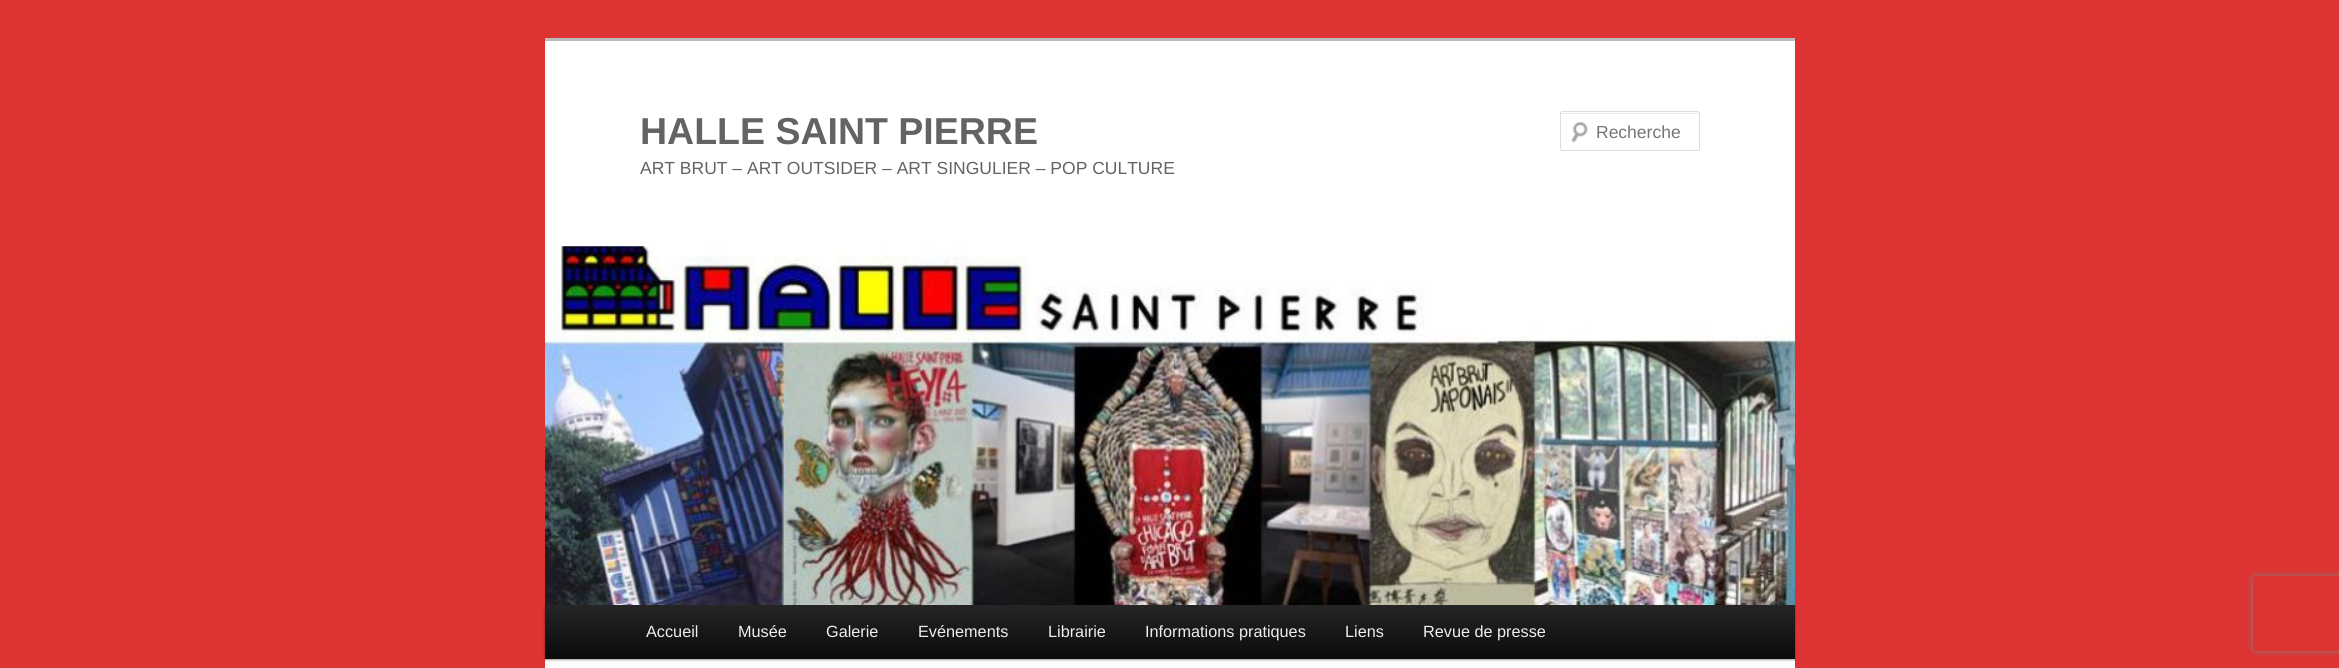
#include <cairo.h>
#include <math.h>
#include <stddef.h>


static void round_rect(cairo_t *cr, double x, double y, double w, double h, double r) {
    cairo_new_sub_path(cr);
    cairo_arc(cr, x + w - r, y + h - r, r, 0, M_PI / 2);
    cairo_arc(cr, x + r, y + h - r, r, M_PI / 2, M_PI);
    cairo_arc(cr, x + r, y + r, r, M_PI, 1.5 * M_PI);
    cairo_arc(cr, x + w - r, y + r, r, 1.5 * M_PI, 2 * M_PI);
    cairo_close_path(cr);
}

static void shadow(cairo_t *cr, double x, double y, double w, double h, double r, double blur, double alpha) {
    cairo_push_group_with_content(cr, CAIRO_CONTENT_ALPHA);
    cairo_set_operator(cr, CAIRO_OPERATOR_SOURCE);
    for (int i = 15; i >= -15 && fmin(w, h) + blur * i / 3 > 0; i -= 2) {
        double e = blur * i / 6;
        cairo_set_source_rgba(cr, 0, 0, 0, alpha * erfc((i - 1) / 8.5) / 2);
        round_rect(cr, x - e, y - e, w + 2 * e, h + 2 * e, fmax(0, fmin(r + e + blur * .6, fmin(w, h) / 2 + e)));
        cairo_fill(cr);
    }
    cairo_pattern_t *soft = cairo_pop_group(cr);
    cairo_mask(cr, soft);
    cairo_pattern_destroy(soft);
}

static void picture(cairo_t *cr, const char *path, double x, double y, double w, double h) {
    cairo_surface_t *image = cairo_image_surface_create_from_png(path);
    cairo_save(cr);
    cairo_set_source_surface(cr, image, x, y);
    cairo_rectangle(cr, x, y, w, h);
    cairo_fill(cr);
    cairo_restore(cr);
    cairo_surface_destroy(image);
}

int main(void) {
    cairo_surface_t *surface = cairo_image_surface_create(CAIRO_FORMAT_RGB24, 2339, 668);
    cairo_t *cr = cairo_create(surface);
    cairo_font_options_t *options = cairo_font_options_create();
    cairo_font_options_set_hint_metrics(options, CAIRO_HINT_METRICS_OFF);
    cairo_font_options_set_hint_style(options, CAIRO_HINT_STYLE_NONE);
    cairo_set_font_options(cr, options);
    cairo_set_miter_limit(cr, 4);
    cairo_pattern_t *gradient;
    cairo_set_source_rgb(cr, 0.867, 0.2, 0.2);
    cairo_paint(cr);
    cairo_set_source_rgb(cr, 1, 1, 1);
    cairo_rectangle(cr, 545, 41, 1250, 627);
    cairo_fill(cr);
    cairo_set_source_rgb(cr, 0.733, 0.733, 0.733);
    cairo_rectangle(cr, 545, 38, 1250, 3);
    cairo_fill(cr);
    cairo_select_font_face(cr, "Liberation Sans", CAIRO_FONT_SLANT_NORMAL, CAIRO_FONT_WEIGHT_BOLD);
    cairo_set_font_size(cr, 37.5);
    cairo_set_source_rgb(cr, 0.388, 0.388, 0.388);
    cairo_move_to(cr, 640, 144);
    cairo_show_text(cr, "HALLE SAINT PIERRE");
    cairo_select_font_face(cr, "Liberation Sans", CAIRO_FONT_SLANT_NORMAL, CAIRO_FONT_WEIGHT_NORMAL);
    cairo_set_font_size(cr, 17.5);
    cairo_move_to(cr, 640, 174);
    cairo_show_text(cr, "ART BRUT – ART OUTSIDER – ART SINGULIER – POP CULTURE");
    picture(cr, "img1.png", 1571, 121, 17, 22);
    cairo_set_source_rgb(cr, 0.902, 0.902, 0.902);
    cairo_new_path(cr);
    cairo_move_to(cr, 1562, 114);
    cairo_line_to(cr, 1698, 114);
    cairo_line_to(cr, 1699, 115);
    cairo_curve_to(cr, 1699, 114, 1699, 113, 1698, 113);
    cairo_line_to(cr, 1562, 113);
    cairo_curve_to(cr, 1561, 113, 1561, 114, 1561, 115);
    cairo_close_path(cr);
    cairo_fill(cr);
    round_rect(cr, 1560.5, 111.5, 139, 39, 2);
    cairo_set_source_rgb(cr, 0.867, 0.867, 0.867);
    cairo_set_line_width(cr, 1);
    cairo_stroke(cr);
    cairo_set_source_rgb(cr, 0.459, 0.459, 0.459);
    cairo_move_to(cr, 1596, 138);
    cairo_show_text(cr, "Recherche");
    cairo_set_source_rgb(cr, 0, 0, 0);
    shadow(cr, 545, 606, 1250, 54, 0, 1, 0.4);
    picture(cr, "img2.png", 545, 246, 1250, 359);
    gradient = cairo_pattern_create_linear(1170, 605, 1170, 659);
    cairo_pattern_add_color_stop_rgba(gradient, 0, 0.145, 0.145, 0.145, 1);
    cairo_pattern_add_color_stop_rgba(gradient, 1, 0.039, 0.039, 0.039, 1);
    cairo_set_source(cr, gradient);
    cairo_pattern_destroy(gradient);
    cairo_rectangle(cr, 545, 605, 1250, 54);
    cairo_fill(cr);
    cairo_set_font_size(cr, 16.25);
    cairo_set_source_rgb(cr, 0.933, 0.933, 0.933);
    cairo_move_to(cr, 646, 637);
    cairo_show_text(cr, "Accueil");
    cairo_move_to(cr, 738, 637);
    cairo_show_text(cr, "Musée");
    cairo_move_to(cr, 826, 637);
    cairo_show_text(cr, "Galerie");
    cairo_move_to(cr, 918, 637);
    cairo_show_text(cr, "Evénements");
    cairo_move_to(cr, 1048, 637);
    cairo_show_text(cr, "Librairie");
    cairo_move_to(cr, 1145, 637);
    cairo_show_text(cr, "Informations pratiques");
    cairo_move_to(cr, 1345, 637);
    cairo_show_text(cr, "Liens");
    cairo_move_to(cr, 1423, 637);
    cairo_show_text(cr, "Revue de presse");
    cairo_save(cr);
    cairo_set_fill_rule(cr, CAIRO_FILL_RULE_EVEN_ODD);
    cairo_new_path(cr);
    cairo_move_to(cr, 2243, 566);
    cairo_line_to(cr, 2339, 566);
    cairo_line_to(cr, 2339, 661);
    cairo_line_to(cr, 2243, 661);
    cairo_close_path(cr);
    cairo_move_to(cr, 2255.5, 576);
    cairo_line_to(cr, 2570.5, 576);
    cairo_curve_to(cr, 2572, 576, 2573, 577, 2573, 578.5);
    cairo_line_to(cr, 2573, 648.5);
    cairo_curve_to(cr, 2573, 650, 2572, 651, 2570.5, 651);
    cairo_line_to(cr, 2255.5, 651);
    cairo_curve_to(cr, 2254, 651, 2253, 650, 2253, 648.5);
    cairo_line_to(cr, 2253, 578.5);
    cairo_curve_to(cr, 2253, 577, 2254, 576, 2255.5, 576);
    cairo_close_path(cr);
    cairo_clip(cr);
    cairo_set_source_rgb(cr, 0.502, 0.502, 0.502);
    shadow(cr, 2253, 576, 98, 75, 2.5, 3, 1);
    cairo_restore(cr);
    cairo_surface_write_to_png(surface, "page.png");
    cairo_font_options_destroy(options);
    cairo_destroy(cr);
    cairo_surface_destroy(surface);
    return 0;
}
